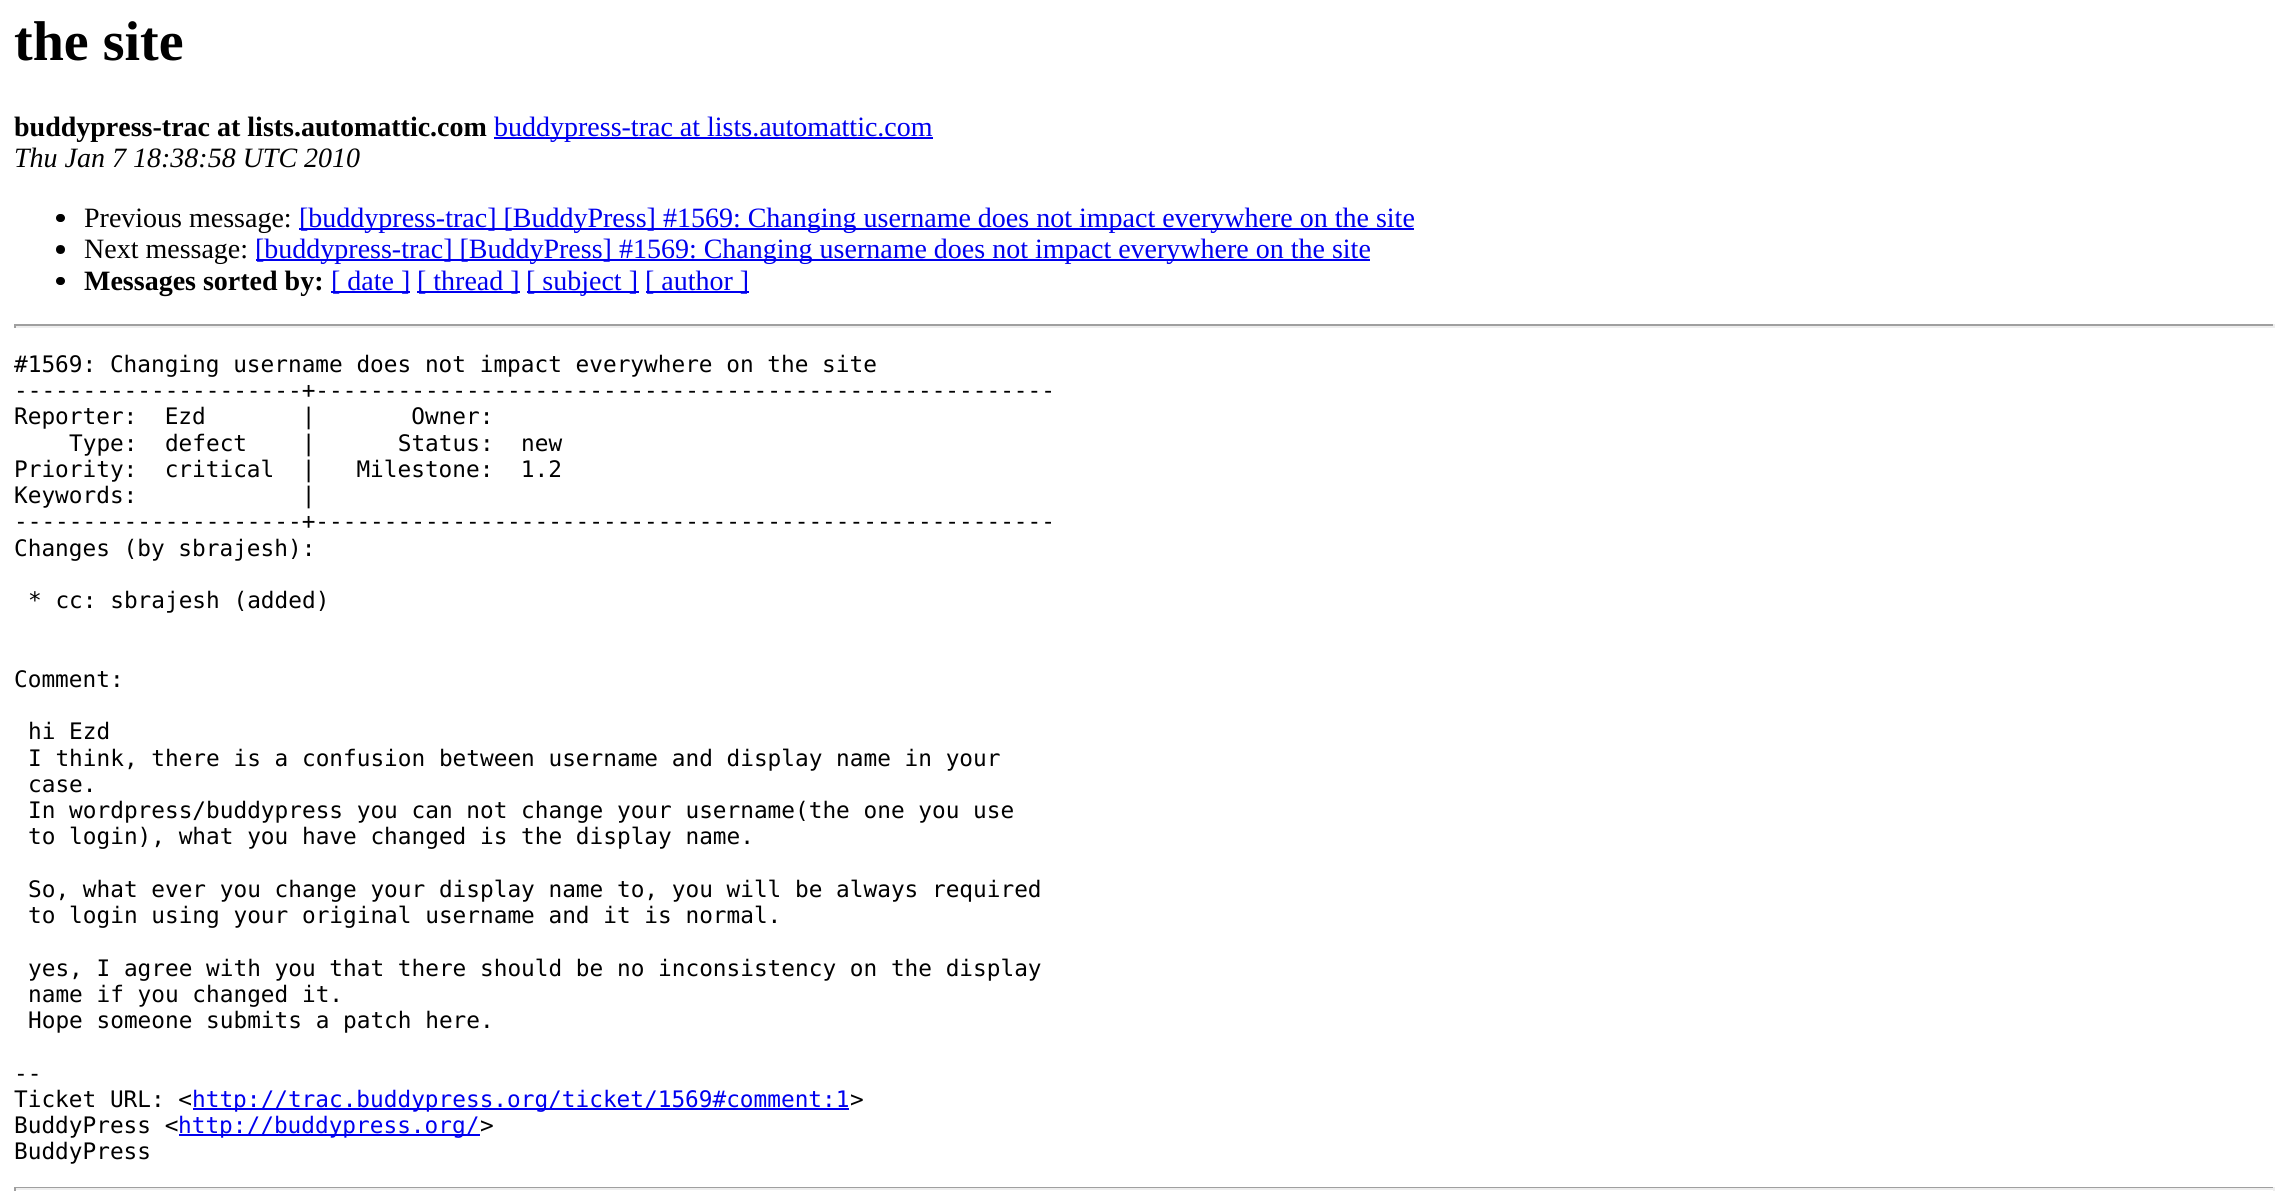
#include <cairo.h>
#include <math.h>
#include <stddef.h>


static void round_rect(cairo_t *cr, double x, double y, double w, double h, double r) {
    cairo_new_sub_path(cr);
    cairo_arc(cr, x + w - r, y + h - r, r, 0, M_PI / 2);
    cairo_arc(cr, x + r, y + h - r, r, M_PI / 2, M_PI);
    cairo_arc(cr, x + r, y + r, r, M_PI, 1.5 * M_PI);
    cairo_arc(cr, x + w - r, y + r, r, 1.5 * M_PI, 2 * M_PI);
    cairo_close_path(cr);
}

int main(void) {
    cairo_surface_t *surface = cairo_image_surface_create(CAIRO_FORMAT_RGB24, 2288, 1198);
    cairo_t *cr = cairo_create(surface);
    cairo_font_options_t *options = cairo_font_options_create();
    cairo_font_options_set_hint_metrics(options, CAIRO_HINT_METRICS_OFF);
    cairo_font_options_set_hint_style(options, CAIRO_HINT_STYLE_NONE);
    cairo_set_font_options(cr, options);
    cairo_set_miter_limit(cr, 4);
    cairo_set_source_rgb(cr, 1, 1, 1);
    cairo_paint(cr);
    cairo_select_font_face(cr, "Liberation Serif", CAIRO_FONT_SLANT_NORMAL, CAIRO_FONT_WEIGHT_BOLD);
    cairo_set_font_size(cr, 56);
    cairo_set_source_rgb(cr, 0, 0, 0);
    cairo_move_to(cr, 14, 60);
    cairo_show_text(cr, "the site");
    cairo_set_font_size(cr, 28);
    cairo_move_to(cr, 14, 136);
    cairo_show_text(cr, "buddypress-trac at lists.automattic.com");
    cairo_set_source_rgb(cr, 0, 0, 0.933);
    cairo_rectangle(cr, 494, 137, 439, 2);
    cairo_fill(cr);
    cairo_select_font_face(cr, "Liberation Serif", CAIRO_FONT_SLANT_NORMAL, CAIRO_FONT_WEIGHT_NORMAL);
    cairo_move_to(cr, 494, 136);
    cairo_show_text(cr, "buddypress-trac at lists.automattic.com");
    cairo_select_font_face(cr, "Liberation Serif", CAIRO_FONT_SLANT_ITALIC, CAIRO_FONT_WEIGHT_NORMAL);
    cairo_set_source_rgb(cr, 0, 0, 0);
    cairo_move_to(cr, 14, 167);
    cairo_show_text(cr, "Thu Jan 7 18:38:58 UTC 2010");
    round_rect(cr, 56, 214, 9, 8, 4);
    cairo_fill(cr);
    cairo_select_font_face(cr, "Liberation Serif", CAIRO_FONT_SLANT_NORMAL, CAIRO_FONT_WEIGHT_NORMAL);
    cairo_move_to(cr, 84, 227);
    cairo_show_text(cr, "Previous message:");
    cairo_set_source_rgb(cr, 0, 0, 0.933);
    cairo_rectangle(cr, 299, 228, 1115, 2);
    cairo_fill(cr);
    cairo_move_to(cr, 299, 227);
    cairo_show_text(cr, "[buddypress-trac] [BuddyPress] #1569: Changing username does not impact everywhere on the site");
    cairo_set_source_rgb(cr, 0, 0, 0);
    cairo_new_path(cr);
    cairo_arc(cr, 60.5, 249.5, 4.5, 0, 2 * M_PI);
    cairo_fill(cr);
    cairo_move_to(cr, 84, 258);
    cairo_show_text(cr, "Next message:");
    cairo_set_source_rgb(cr, 0, 0, 0.933);
    cairo_rectangle(cr, 256, 259, 1114, 2);
    cairo_fill(cr);
    cairo_move_to(cr, 255, 258);
    cairo_show_text(cr, "[buddypress-trac] [BuddyPress] #1569: Changing username does not impact everywhere on the site");
    cairo_set_source_rgb(cr, 0, 0, 0);
    round_rect(cr, 56, 277, 9, 8, 4);
    cairo_fill(cr);
    cairo_select_font_face(cr, "Liberation Serif", CAIRO_FONT_SLANT_NORMAL, CAIRO_FONT_WEIGHT_BOLD);
    cairo_move_to(cr, 84, 290);
    cairo_show_text(cr, "Messages sorted by:");
    cairo_set_source_rgb(cr, 0, 0, 0.933);
    cairo_rectangle(cr, 331, 291, 79, 2);
    cairo_fill(cr);
    cairo_select_font_face(cr, "Liberation Serif", CAIRO_FONT_SLANT_NORMAL, CAIRO_FONT_WEIGHT_NORMAL);
    cairo_move_to(cr, 331, 290);
    cairo_show_text(cr, "[ date ]");
    cairo_rectangle(cr, 417, 291, 103, 2);
    cairo_fill(cr);
    cairo_move_to(cr, 417, 290);
    cairo_show_text(cr, "[ thread ]");
    cairo_rectangle(cr, 527, 291, 112, 2);
    cairo_fill(cr);
    cairo_move_to(cr, 526, 290);
    cairo_show_text(cr, "[ subject ]");
    cairo_rectangle(cr, 646, 291, 103, 2);
    cairo_fill(cr);
    cairo_move_to(cr, 645, 290);
    cairo_show_text(cr, "[ author ]");
    cairo_set_source_rgb(cr, 0.624, 0.624, 0.624);
    cairo_rectangle(cr, 14, 324, 2261, 2);
    cairo_fill(cr);
    cairo_set_source_rgb(cr, 0.933, 0.933, 0.933);
    cairo_rectangle(cr, 2273, 324, 2, 4);
    cairo_fill(cr);
    cairo_rectangle(cr, 14, 326, 2261, 2);
    cairo_fill(cr);
    cairo_set_source_rgb(cr, 0.624, 0.624, 0.624);
    cairo_rectangle(cr, 14, 324, 2, 4);
    cairo_fill(cr);
    cairo_select_font_face(cr, "DejaVu Sans Mono", CAIRO_FONT_SLANT_NORMAL, CAIRO_FONT_WEIGHT_NORMAL);
    cairo_set_font_size(cr, 22.75);
    cairo_set_source_rgb(cr, 0, 0, 0);
    cairo_move_to(cr, 14, 372);
    cairo_show_text(cr, "#1569: Changing username does not impact everywhere on the site");
    cairo_move_to(cr, 14, 398);
    cairo_show_text(cr, "---------------------+------------------------------------------------------");
    cairo_move_to(cr, 14, 424);
    cairo_show_text(cr, "Reporter:  Ezd       |       Owner:");
    cairo_move_to(cr, 69, 451);
    cairo_show_text(cr, "Type:  defect    |      Status:  new");
    cairo_move_to(cr, 14, 477);
    cairo_show_text(cr, "Priority:  critical  |   Milestone:  1.2");
    cairo_move_to(cr, 14, 503);
    cairo_show_text(cr, "Keywords:            |");
    cairo_move_to(cr, 14, 529);
    cairo_show_text(cr, "---------------------+------------------------------------------------------");
    cairo_move_to(cr, 14, 556);
    cairo_show_text(cr, "Changes (by sbrajesh):");
    cairo_move_to(cr, 28, 608);
    cairo_show_text(cr, "* cc: sbrajesh (added)");
    cairo_move_to(cr, 14, 687);
    cairo_show_text(cr, "Comment:");
    cairo_move_to(cr, 28, 739);
    cairo_show_text(cr, "hi Ezd");
    cairo_move_to(cr, 28, 766);
    cairo_show_text(cr, "I think, there is a confusion between username and display name in your");
    cairo_move_to(cr, 28, 792);
    cairo_show_text(cr, "case.");
    cairo_move_to(cr, 28, 818);
    cairo_show_text(cr, "In wordpress/buddypress you can not change your username(the one you use");
    cairo_move_to(cr, 28, 844);
    cairo_show_text(cr, "to login), what you have changed is the display name.");
    cairo_move_to(cr, 28, 897);
    cairo_show_text(cr, "So, what ever you change your display name to, you will be always required");
    cairo_move_to(cr, 28, 923);
    cairo_show_text(cr, "to login using your original username and it is normal.");
    cairo_move_to(cr, 28, 976);
    cairo_show_text(cr, "yes, I agree with you that there should be no inconsistency on the display");
    cairo_move_to(cr, 28, 1002);
    cairo_show_text(cr, "name if you changed it.");
    cairo_move_to(cr, 28, 1028);
    cairo_show_text(cr, "Hope someone submits a patch here.");
    cairo_move_to(cr, 14, 1081);
    cairo_show_text(cr, "--");
    cairo_move_to(cr, 14, 1107);
    cairo_show_text(cr, "Ticket URL: <");
    cairo_set_source_rgb(cr, 0, 0, 0.933);
    cairo_rectangle(cr, 193, 1108, 656, 2);
    cairo_fill(cr);
    cairo_move_to(cr, 192, 1107);
    cairo_show_text(cr, "http://trac.buddypress.org/ticket/1569#comment:1");
    cairo_set_source_rgb(cr, 0, 0, 0);
    cairo_move_to(cr, 850, 1107);
    cairo_show_text(cr, ">");
    cairo_move_to(cr, 14, 1133);
    cairo_show_text(cr, "BuddyPress <");
    cairo_set_source_rgb(cr, 0, 0, 0.933);
    cairo_rectangle(cr, 179, 1134, 301, 2);
    cairo_fill(cr);
    cairo_move_to(cr, 178, 1133);
    cairo_show_text(cr, "http://buddypress.org/");
    cairo_set_source_rgb(cr, 0, 0, 0);
    cairo_move_to(cr, 480, 1133);
    cairo_show_text(cr, ">");
    cairo_move_to(cr, 14, 1159);
    cairo_show_text(cr, "BuddyPress");
    cairo_set_source_rgb(cr, 0.624, 0.624, 0.624);
    cairo_rectangle(cr, 14, 1187, 2261, 1);
    cairo_fill(cr);
    cairo_set_source_rgb(cr, 0.933, 0.933, 0.933);
    cairo_rectangle(cr, 2273, 1187, 2, 4);
    cairo_fill(cr);
    cairo_rectangle(cr, 14, 1188, 2261, 2);
    cairo_fill(cr);
    cairo_set_source_rgb(cr, 0.624, 0.624, 0.624);
    cairo_rectangle(cr, 14, 1187, 2, 4);
    cairo_fill(cr);
    cairo_surface_write_to_png(surface, "page.png");
    cairo_font_options_destroy(options);
    cairo_destroy(cr);
    cairo_surface_destroy(surface);
    return 0;
}
